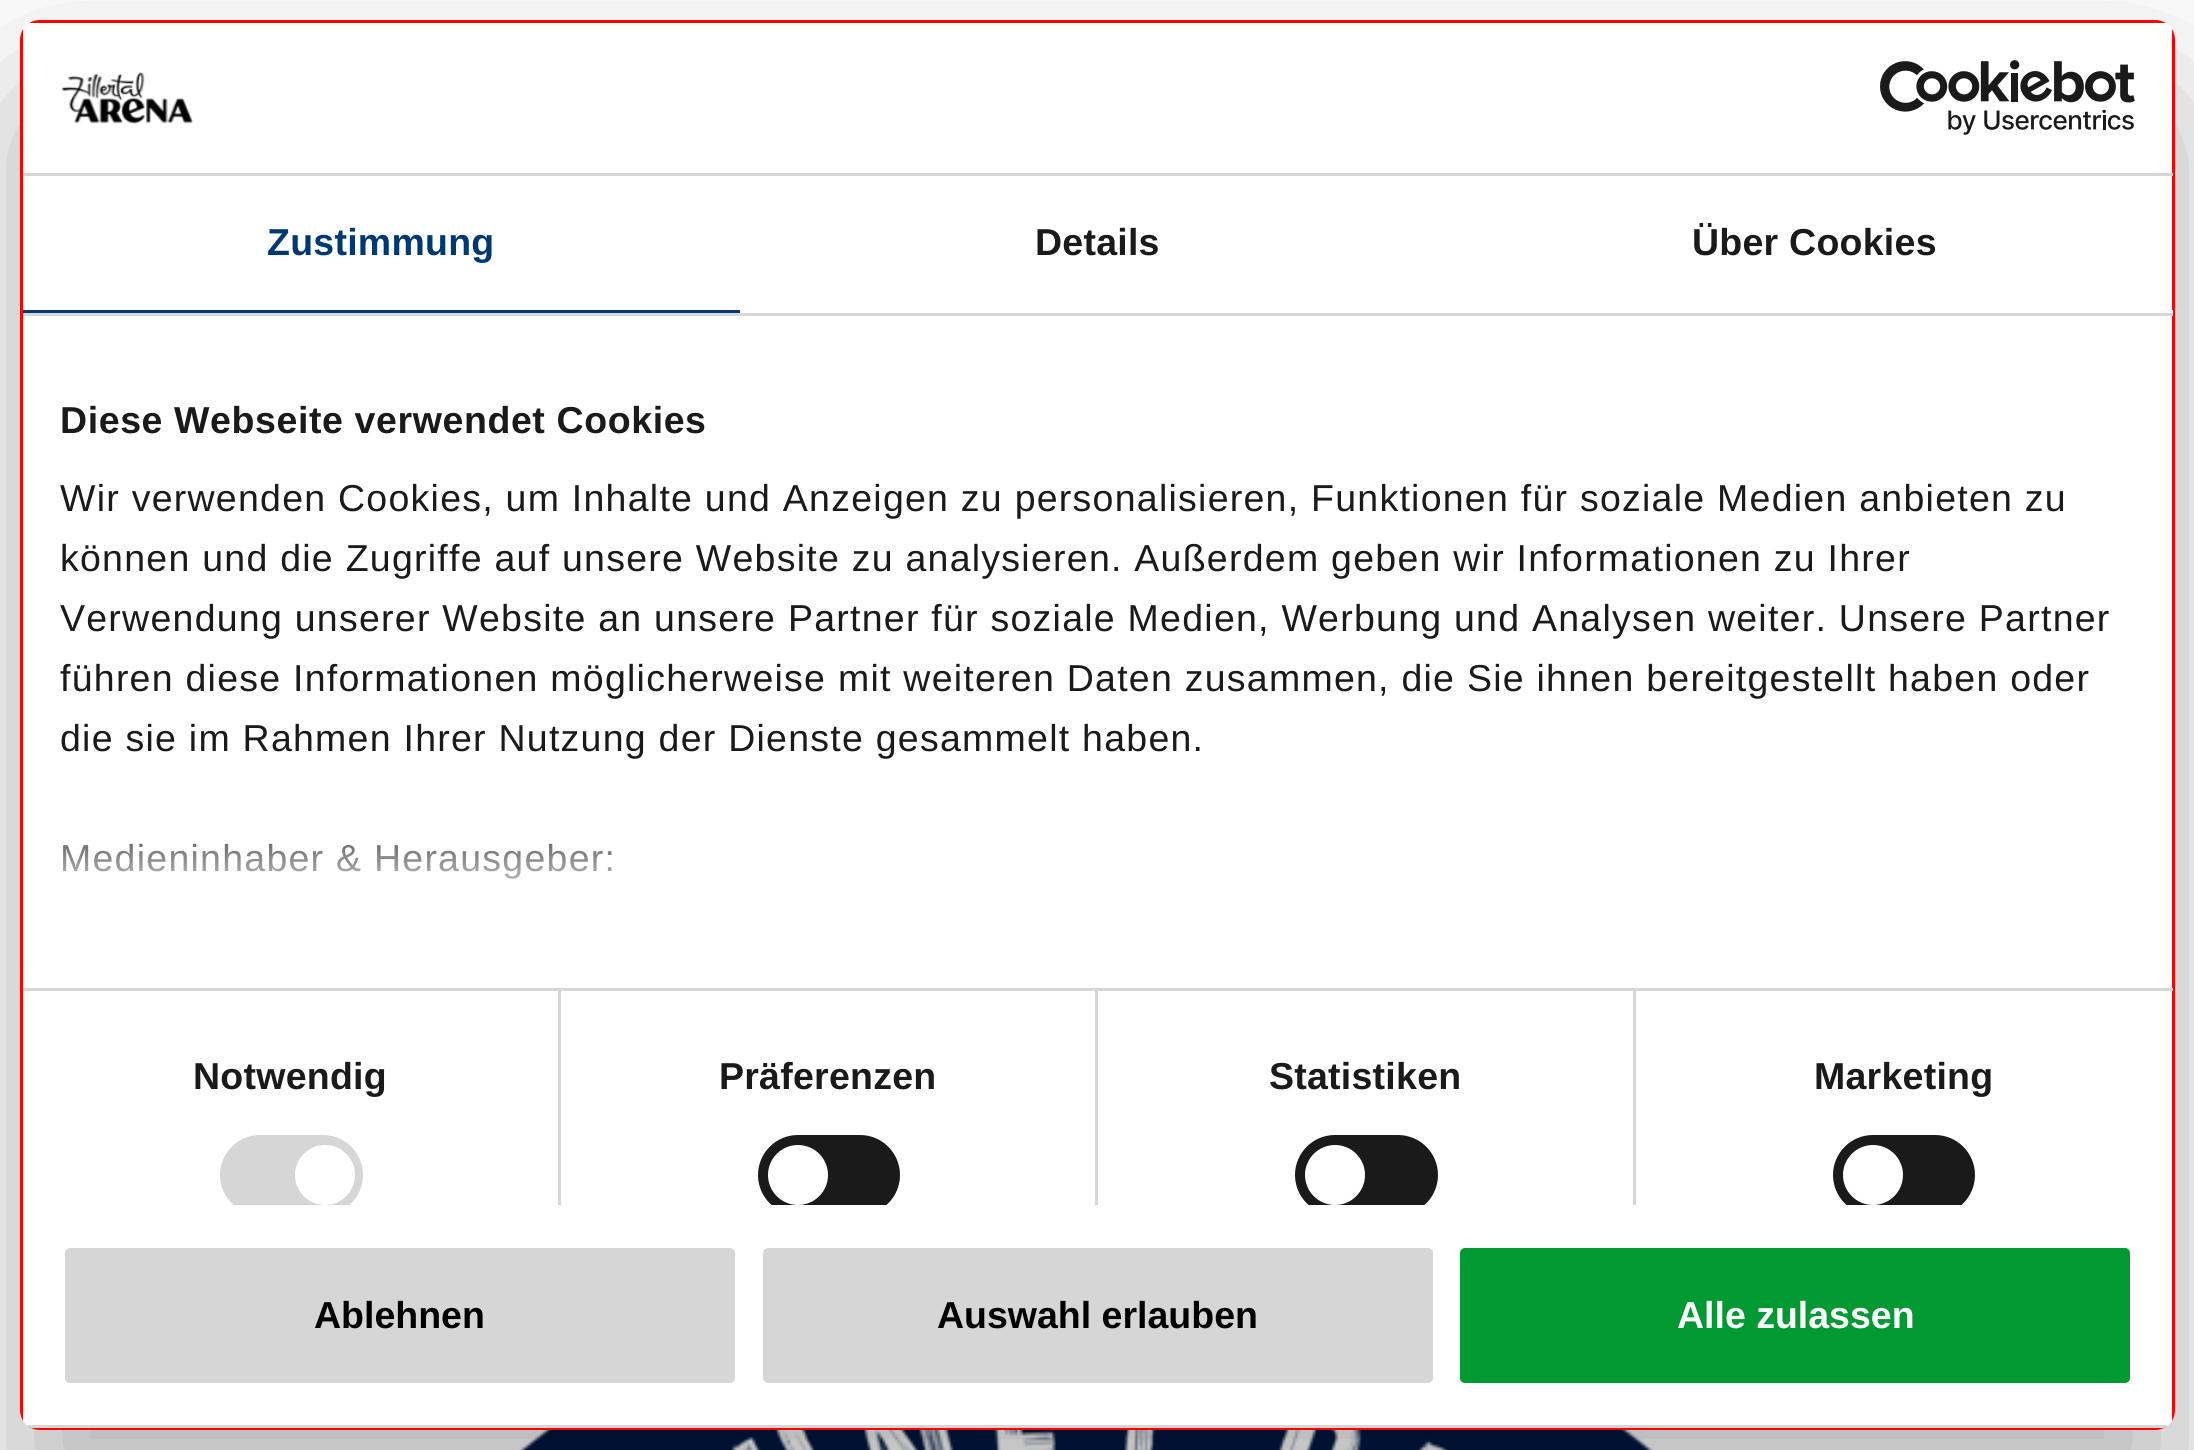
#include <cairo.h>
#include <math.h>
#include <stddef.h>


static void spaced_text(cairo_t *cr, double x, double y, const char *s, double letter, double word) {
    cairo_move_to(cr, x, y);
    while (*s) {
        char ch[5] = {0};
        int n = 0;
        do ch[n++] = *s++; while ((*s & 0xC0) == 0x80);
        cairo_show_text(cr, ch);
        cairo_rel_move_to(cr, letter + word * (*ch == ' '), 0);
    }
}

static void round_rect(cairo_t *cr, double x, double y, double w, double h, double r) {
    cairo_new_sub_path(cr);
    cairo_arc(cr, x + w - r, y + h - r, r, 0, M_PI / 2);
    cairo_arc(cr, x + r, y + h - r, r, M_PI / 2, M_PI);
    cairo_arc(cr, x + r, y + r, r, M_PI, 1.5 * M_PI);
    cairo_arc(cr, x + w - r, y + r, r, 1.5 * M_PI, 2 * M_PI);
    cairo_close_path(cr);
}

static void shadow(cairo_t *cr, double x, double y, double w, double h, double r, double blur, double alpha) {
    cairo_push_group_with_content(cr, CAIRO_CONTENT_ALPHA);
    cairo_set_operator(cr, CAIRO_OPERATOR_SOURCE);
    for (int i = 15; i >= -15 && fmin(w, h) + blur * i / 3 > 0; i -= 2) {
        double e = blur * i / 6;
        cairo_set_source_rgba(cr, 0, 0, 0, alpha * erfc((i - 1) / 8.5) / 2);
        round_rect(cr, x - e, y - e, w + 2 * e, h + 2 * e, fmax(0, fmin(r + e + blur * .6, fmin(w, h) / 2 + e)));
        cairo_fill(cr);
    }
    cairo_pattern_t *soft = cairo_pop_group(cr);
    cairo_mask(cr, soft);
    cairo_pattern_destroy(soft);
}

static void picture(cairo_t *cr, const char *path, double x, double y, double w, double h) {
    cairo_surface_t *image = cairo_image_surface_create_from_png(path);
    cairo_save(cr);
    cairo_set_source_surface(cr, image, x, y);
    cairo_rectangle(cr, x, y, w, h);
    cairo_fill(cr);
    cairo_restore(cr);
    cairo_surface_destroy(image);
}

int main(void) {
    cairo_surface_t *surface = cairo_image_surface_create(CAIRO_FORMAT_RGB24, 2194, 1450);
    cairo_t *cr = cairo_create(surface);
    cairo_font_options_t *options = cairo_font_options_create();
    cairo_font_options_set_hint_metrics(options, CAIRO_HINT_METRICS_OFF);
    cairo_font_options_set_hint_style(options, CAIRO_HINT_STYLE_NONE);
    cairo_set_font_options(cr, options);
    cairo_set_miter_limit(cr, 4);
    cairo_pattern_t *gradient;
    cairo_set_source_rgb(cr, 1, 1, 1);
    cairo_paint(cr);
    picture(cr, "img3.png", 519, 1430, 1135, 20);
    cairo_set_source_rgb(cr, 0, 0, 0);
    shadow(cr, 20, 100, 2155, 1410, 20, 85, 0.3);
    cairo_set_source_rgb(cr, 1, 1, 1);
    round_rect(cr, 20, 20, 2155, 1410, 20);
    cairo_fill(cr);
    cairo_set_source_rgb(cr, 1, 0, 0);
    cairo_set_fill_rule(cr, CAIRO_FILL_RULE_EVEN_ODD);
    cairo_new_path(cr);
    cairo_move_to(cr, 20, 40);
    cairo_line_to(cr, 20, 1410);
    cairo_curve_to(cr, 20, 1414, 21, 1417, 23, 1421);
    cairo_line_to(cr, 23, 29);
    cairo_curve_to(cr, 21, 33, 20, 36, 20, 40);
    cairo_close_path(cr);
    cairo_move_to(cr, 40, 20);
    cairo_curve_to(cr, 36, 20, 33, 21, 29, 23);
    cairo_line_to(cr, 2166, 23);
    cairo_curve_to(cr, 2162, 21, 2159, 20, 2155, 20);
    cairo_close_path(cr);
    cairo_move_to(cr, 2175, 40);
    cairo_curve_to(cr, 2175, 36, 2174, 33, 2172, 29);
    cairo_line_to(cr, 2172, 1421);
    cairo_curve_to(cr, 2174, 1417, 2175, 1414, 2175, 1410);
    cairo_close_path(cr);
    cairo_move_to(cr, 2155, 1430);
    cairo_curve_to(cr, 2159, 1430, 2162, 1429, 2166, 1427);
    cairo_line_to(cr, 29, 1427);
    cairo_curve_to(cr, 33, 1429, 36, 1430, 40, 1430);
    cairo_close_path(cr);
    cairo_fill(cr);
    cairo_set_source_rgb(cr, 0.839, 0.839, 0.839);
    cairo_rectangle(cr, 23, 173, 2150, 3);
    cairo_fill(cr);
    picture(cr, "img1.png", 61, 72, 132, 52);
    picture(cr, "img2.png", 1880, 60, 255, 75);
    cairo_rectangle(cr, 23, 313, 2150, 3);
    cairo_fill(cr);
    cairo_set_source_rgb(cr, 0, 0.224, 0.447);
    cairo_rectangle(cr, 23, 310, 717, 3);
    cairo_fill(cr);
    cairo_select_font_face(cr, "Liberation Sans", CAIRO_FONT_SLANT_NORMAL, CAIRO_FONT_WEIGHT_BOLD);
    cairo_set_font_size(cr, 37.5);
    spaced_text(cr, 267, 255, "Zustimmung", 0.25, 0);
    cairo_set_source_rgb(cr, 0.102, 0.102, 0.102);
    spaced_text(cr, 1035, 255, "Details", 0.25, 0);
    cairo_set_source_rgb(cr, 1, 1, 1);
    cairo_rectangle(cr, 2172, 310, 1, 3);
    cairo_fill(cr);
    cairo_set_source_rgb(cr, 0.102, 0.102, 0.102);
    spaced_text(cr, 1692, 255, "Über Cookies", 0.25, 0);
    cairo_set_source_rgb(cr, 0.839, 0.839, 0.839);
    cairo_rectangle(cr, 558, 990, 3, 215);
    cairo_fill(cr);
    cairo_rectangle(cr, 1095, 990, 3, 215);
    cairo_fill(cr);
    cairo_rectangle(cr, 1633, 990, 3, 215);
    cairo_fill(cr);
    cairo_rectangle(cr, 23, 988, 2150, 3);
    cairo_fill(cr);
    cairo_set_source_rgb(cr, 0.102, 0.102, 0.102);
    spaced_text(cr, 60, 433, "Diese Webseite verwendet Cookies", 0.6, 0);
    cairo_select_font_face(cr, "Liberation Sans", CAIRO_FONT_SLANT_NORMAL, CAIRO_FONT_WEIGHT_NORMAL);
    spaced_text(cr, 60, 511, "Wir verwenden Cookies, um Inhalte und Anzeigen zu personalisieren, Funktionen für soziale Medien anbieten zu", 1.25, 0);
    spaced_text(cr, 60, 571, "können und die Zugriffe auf unsere Website zu analysieren. Außerdem geben wir Informationen zu Ihrer", 1.25, 0);
    spaced_text(cr, 60, 631, "Verwendung unserer Website an unsere Partner für soziale Medien, Werbung und Analysen weiter. Unsere Partner", 1.25, 0);
    spaced_text(cr, 60, 691, "führen diese Informationen möglicherweise mit weiteren Daten zusammen, die Sie ihnen bereitgestellt haben oder", 1.25, 0);
    spaced_text(cr, 60, 751, "die sie im Rahmen Ihrer Nutzung der Dienste gesammelt haben.", 1.25, 0);
    spaced_text(cr, 60, 871, "Medieninhaber & Herausgeber:", 1.25, 0);
    gradient = cairo_pattern_create_linear(1081, 988, 1081, 800);
    cairo_pattern_add_color_stop_rgba(gradient, 0, 1, 1, 1, 1);
    cairo_pattern_add_color_stop_rgba(gradient, 0.5, 1, 1, 1, 0.8);
    cairo_pattern_add_color_stop_rgba(gradient, 1, 1, 1, 1, 0);
    cairo_set_source(cr, gradient);
    cairo_pattern_destroy(gradient);
    cairo_rectangle(cr, 63, 843, 549, 36);
    cairo_fill(cr);
    cairo_select_font_face(cr, "Liberation Sans", CAIRO_FONT_SLANT_NORMAL, CAIRO_FONT_WEIGHT_BOLD);
    cairo_set_source_rgb(cr, 0.102, 0.102, 0.102);
    spaced_text(cr, 193, 1089, "Notwendig", 0.25, 0);
    cairo_save(cr);
    cairo_set_fill_rule(cr, CAIRO_FILL_RULE_WINDING);
    cairo_rectangle(cr, 23, 315, 2150, 890);
    cairo_clip(cr);
    cairo_set_source_rgb(cr, 0.839, 0.839, 0.839);
    round_rect(cr, 220, 1135, 143, 80, 40);
    cairo_fill(cr);
    cairo_restore(cr);
    cairo_set_source_rgb(cr, 1, 1, 1);
    cairo_arc(cr, 325, 1175, 30, 0, 2 * M_PI);
    cairo_fill(cr);
    cairo_set_source_rgb(cr, 0.102, 0.102, 0.102);
    spaced_text(cr, 719, 1089, "Präferenzen", 0.25, 0);
    cairo_save(cr);
    cairo_set_fill_rule(cr, CAIRO_FILL_RULE_WINDING);
    cairo_rectangle(cr, 23, 315, 2150, 890);
    cairo_clip(cr);
    round_rect(cr, 758, 1135, 142, 80, 40);
    cairo_fill(cr);
    cairo_restore(cr);
    cairo_set_source_rgb(cr, 1, 1, 1);
    cairo_arc(cr, 798, 1175, 30, 0, 2 * M_PI);
    cairo_fill(cr);
    cairo_set_source_rgb(cr, 0.102, 0.102, 0.102);
    spaced_text(cr, 1269, 1089, "Statistiken", 0.25, 0);
    cairo_save(cr);
    cairo_set_fill_rule(cr, CAIRO_FILL_RULE_WINDING);
    cairo_rectangle(cr, 23, 315, 2150, 890);
    cairo_clip(cr);
    round_rect(cr, 1295, 1135, 143, 80, 40);
    cairo_fill(cr);
    cairo_restore(cr);
    cairo_set_source_rgb(cr, 1, 1, 1);
    cairo_arc(cr, 1335, 1175, 30, 0, 2 * M_PI);
    cairo_fill(cr);
    cairo_set_source_rgb(cr, 0.102, 0.102, 0.102);
    spaced_text(cr, 1814, 1089, "Marketing", 0.25, 0);
    cairo_save(cr);
    cairo_set_fill_rule(cr, CAIRO_FILL_RULE_WINDING);
    cairo_rectangle(cr, 23, 315, 2150, 890);
    cairo_clip(cr);
    round_rect(cr, 1833, 1135, 142, 80, 40);
    cairo_fill(cr);
    cairo_restore(cr);
    cairo_set_source_rgb(cr, 1, 1, 1);
    cairo_arc(cr, 1873, 1175, 30, 0, 2 * M_PI);
    cairo_fill(cr);
    cairo_save(cr);
    cairo_set_fill_rule(cr, CAIRO_FILL_RULE_WINDING);
    round_rect(cr, 20, 20, 2155, 1410, 20);
    cairo_clip(cr);
    cairo_set_source_rgb(cr, 0.839, 0.839, 0.839);
    cairo_rectangle(cr, 23, 1425, 2150, 3);
    cairo_fill(cr);
    cairo_restore(cr);
    cairo_set_source_rgb(cr, 0.839, 0.839, 0.839);
    round_rect(cr, 62.5, 1245.5, 675, 140, 7.5);
    cairo_fill_preserve(cr);
    cairo_set_source_rgb(cr, 1, 1, 1);
    cairo_set_line_width(cr, 5);
    cairo_stroke(cr);
    cairo_set_source_rgb(cr, 0, 0, 0);
    cairo_move_to(cr, 314, 1328);
    cairo_show_text(cr, "Ablehnen");
    cairo_set_source_rgb(cr, 0.839, 0.839, 0.839);
    round_rect(cr, 760.5, 1245.5, 675, 140, 7.5);
    cairo_fill_preserve(cr);
    cairo_set_source_rgb(cr, 1, 1, 1);
    cairo_stroke(cr);
    cairo_set_source_rgb(cr, 0, 0, 0);
    cairo_move_to(cr, 937, 1328);
    cairo_show_text(cr, "Auswahl erlauben");
    cairo_set_source_rgb(cr, 0, 0.6, 0.196);
    round_rect(cr, 1457.5, 1245.5, 675, 140, 7.5);
    cairo_fill_preserve(cr);
    cairo_set_source_rgb(cr, 1, 1, 1);
    cairo_stroke(cr);
    cairo_move_to(cr, 1677, 1328);
    cairo_show_text(cr, "Alle zulassen");
    cairo_surface_write_to_png(surface, "page.png");
    cairo_font_options_destroy(options);
    cairo_destroy(cr);
    cairo_surface_destroy(surface);
    return 0;
}
